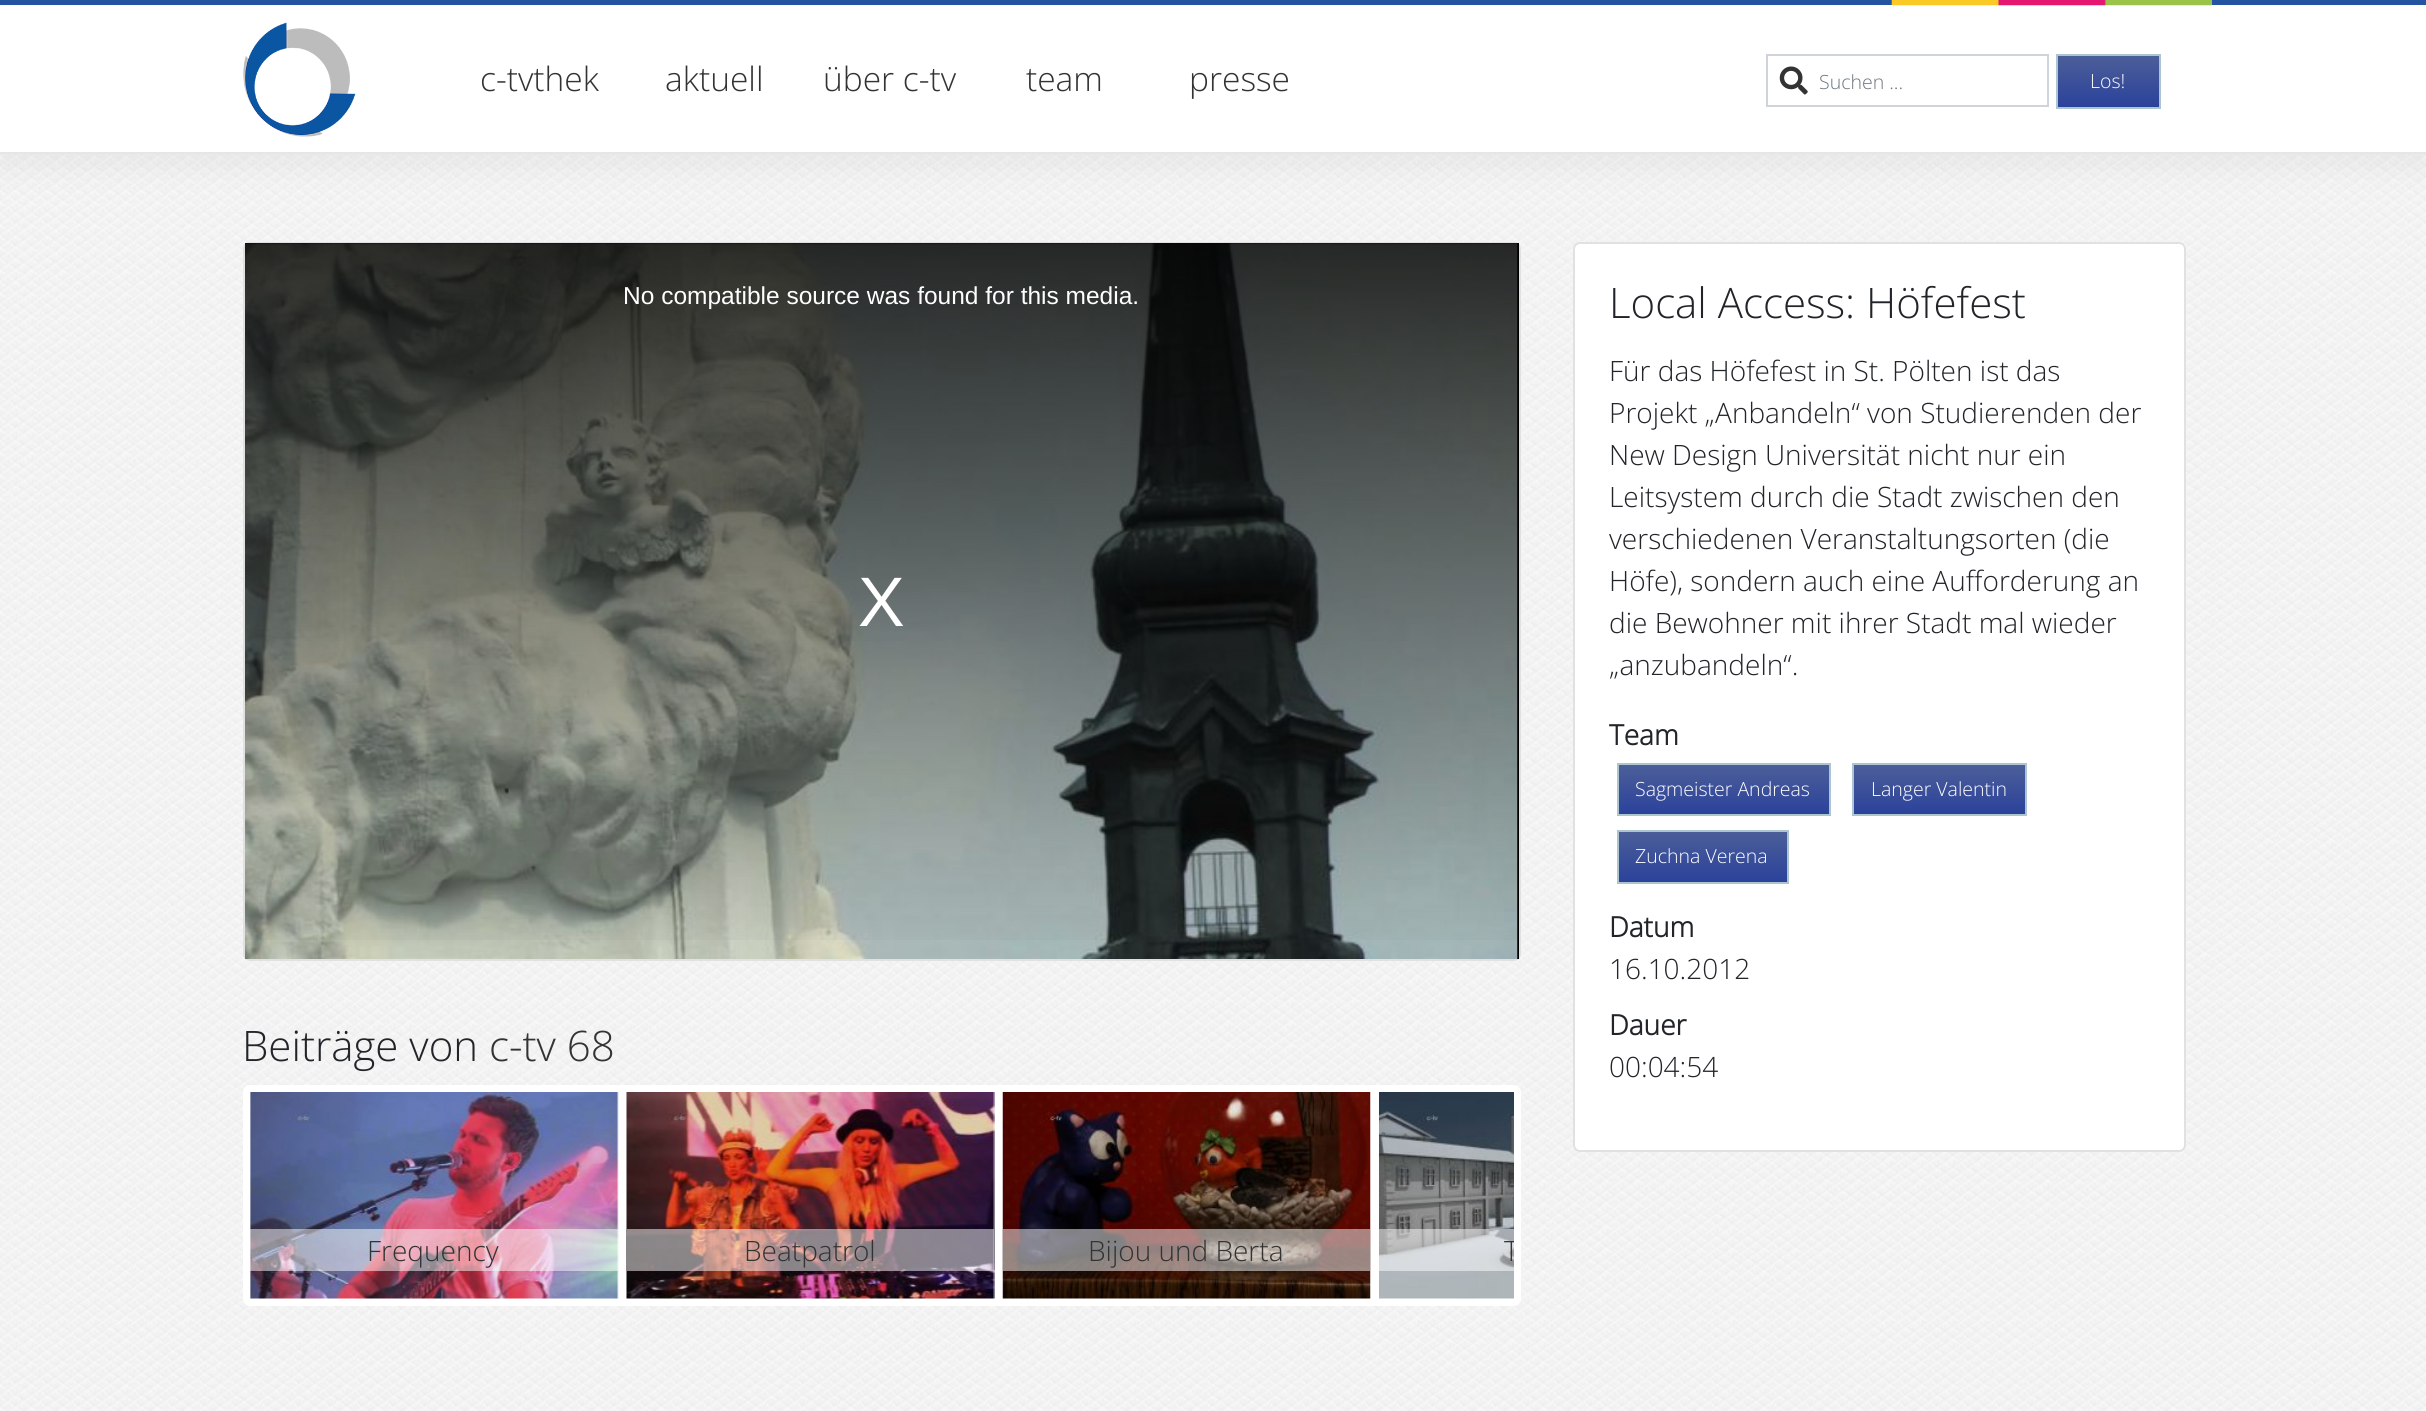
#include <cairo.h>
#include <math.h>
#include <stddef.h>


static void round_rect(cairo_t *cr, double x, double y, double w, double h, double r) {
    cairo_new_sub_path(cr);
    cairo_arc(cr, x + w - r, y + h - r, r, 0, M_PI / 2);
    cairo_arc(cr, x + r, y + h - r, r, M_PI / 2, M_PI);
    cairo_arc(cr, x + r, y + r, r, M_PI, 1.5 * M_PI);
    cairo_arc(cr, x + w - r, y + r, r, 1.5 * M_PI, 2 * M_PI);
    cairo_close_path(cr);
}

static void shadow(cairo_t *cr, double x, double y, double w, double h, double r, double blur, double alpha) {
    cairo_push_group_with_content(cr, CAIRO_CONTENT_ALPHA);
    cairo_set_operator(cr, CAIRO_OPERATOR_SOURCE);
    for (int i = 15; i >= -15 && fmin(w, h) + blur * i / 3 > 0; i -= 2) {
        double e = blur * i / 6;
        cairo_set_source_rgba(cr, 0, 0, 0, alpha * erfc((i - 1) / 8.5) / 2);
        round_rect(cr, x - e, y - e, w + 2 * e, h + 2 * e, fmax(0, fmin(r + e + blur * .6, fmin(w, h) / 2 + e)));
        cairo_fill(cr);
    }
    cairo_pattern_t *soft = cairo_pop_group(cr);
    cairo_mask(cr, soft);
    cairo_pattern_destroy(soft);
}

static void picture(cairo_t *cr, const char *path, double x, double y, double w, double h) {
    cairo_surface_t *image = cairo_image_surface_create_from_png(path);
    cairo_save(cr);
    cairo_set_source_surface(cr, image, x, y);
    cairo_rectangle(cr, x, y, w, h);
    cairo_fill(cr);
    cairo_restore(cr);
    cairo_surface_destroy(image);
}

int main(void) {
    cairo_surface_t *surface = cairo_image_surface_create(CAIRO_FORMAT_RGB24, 2426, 1411);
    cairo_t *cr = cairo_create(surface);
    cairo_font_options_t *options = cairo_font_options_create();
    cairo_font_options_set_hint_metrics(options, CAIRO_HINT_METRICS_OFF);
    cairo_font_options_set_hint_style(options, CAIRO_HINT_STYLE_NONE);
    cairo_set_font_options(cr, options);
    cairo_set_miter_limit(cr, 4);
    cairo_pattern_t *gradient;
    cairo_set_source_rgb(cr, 1, 1, 1);
    cairo_paint(cr);
    picture(cr, "img1.png", 0, 154, 2426, 1257);
    cairo_set_source_rgb(cr, 0, 0, 0);
    shadow(cr, 0, 14, 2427, 154, 0, 14, 0.05);
    cairo_set_source_rgb(cr, 1, 1, 1);
    cairo_rectangle(cr, 0, 5, 2426, 147);
    cairo_fill(cr);
    cairo_set_source_rgb(cr, 0.902, 0.902, 0.902);
    cairo_rectangle(cr, 0, 152, 2426, 2);
    cairo_fill(cr);
    cairo_set_source_rgb(cr, 0.141, 0.325, 0.631);
    cairo_rectangle(cr, 0, 0, 2426, 5);
    cairo_fill(cr);
    picture(cr, "img2.png", 1891, 0, 321, 6);
    picture(cr, "img3.png", 243, 22, 113, 115);
    cairo_select_font_face(cr, "Open Sans Light", CAIRO_FONT_SLANT_NORMAL, CAIRO_FONT_WEIGHT_NORMAL);
    cairo_set_font_size(cr, 33.5);
    cairo_set_source_rgb(cr, 0.2, 0.2, 0.2);
    cairo_move_to(cr, 480, 91);
    cairo_show_text(cr, "c-tvthek");
    cairo_move_to(cr, 665, 91);
    cairo_show_text(cr, "aktuell");
    cairo_move_to(cr, 823, 91);
    cairo_show_text(cr, "über c-tv");
    cairo_move_to(cr, 1026, 91);
    cairo_show_text(cr, "team");
    cairo_move_to(cr, 1189, 91);
    cairo_show_text(cr, "presse");
    cairo_rectangle(cr, 1767, 55, 281, 51);
    cairo_set_source_rgb(cr, 0.808, 0.831, 0.855);
    cairo_stroke(cr);
    picture(cr, "img4.png", 1779, 66, 29, 29);
    cairo_set_font_size(cr, 19.5);
    cairo_set_source_rgb(cr, 0.424, 0.459, 0.49);
    cairo_move_to(cr, 1819, 89);
    cairo_show_text(cr, "Suchen ...");
    gradient = cairo_pattern_create_linear(2109, 56, 2109, 107);
    cairo_pattern_add_color_stop_rgba(gradient, 0, 0.298, 0.369, 0.6, 1);
    cairo_pattern_add_color_stop_rgba(gradient, 1, 0.169, 0.259, 0.608, 1);
    cairo_set_source(cr, gradient);
    cairo_pattern_destroy(gradient);
    cairo_rectangle(cr, 2058, 56, 101, 51);
    cairo_fill(cr);
    cairo_rectangle(cr, 2057, 55, 103, 53);
    cairo_set_source_rgb(cr, 0.678, 0.773, 0.812);
    cairo_stroke(cr);
    cairo_set_source_rgb(cr, 1, 1, 1);
    cairo_move_to(cr, 2090, 88);
    cairo_show_text(cr, "Los!");
    round_rect(cr, 243, 242, 1278, 719, 7);
    cairo_fill(cr);
    round_rect(cr, 244, 243, 1276, 717, 6);
    cairo_set_source_rgba(cr, 0, 0, 0, 0.12);
    cairo_stroke(cr);
    cairo_set_source_rgb(cr, 0, 0, 0);
    cairo_rectangle(cr, 245, 243, 1274, 716);
    cairo_fill(cr);
    picture(cr, "img5.png", 245, 243, 1273, 716);
    gradient = cairo_pattern_create_linear(882, 243, 882, 959);
    cairo_pattern_add_color_stop_rgba(gradient, 0, 0, 0, 0, 0.8);
    cairo_pattern_add_color_stop_rgba(gradient, 1, 0, 0, 0, 0);
    cairo_set_source(cr, gradient);
    cairo_pattern_destroy(gradient);
    cairo_rectangle(cr, 245, 243, 1273, 697);
    cairo_fill(cr);
    cairo_select_font_face(cr, "Liberation Sans", CAIRO_FONT_SLANT_NORMAL, CAIRO_FONT_WEIGHT_NORMAL);
    cairo_set_font_size(cr, 24.5);
    cairo_set_source_rgb(cr, 1, 1, 1);
    cairo_move_to(cr, 623, 304);
    cairo_show_text(cr, "No compatible source was found for this media.");
    cairo_set_font_size(cr, 70);
    cairo_move_to(cr, 858, 626);
    cairo_show_text(cr, "X");
    cairo_select_font_face(cr, "Open Sans Light", CAIRO_FONT_SLANT_NORMAL, CAIRO_FONT_WEIGHT_NORMAL);
    cairo_set_font_size(cr, 42);
    cairo_set_source_rgb(cr, 0.129, 0.145, 0.161);
    cairo_move_to(cr, 242, 1061);
    cairo_show_text(cr, "Beiträge von");
    cairo_set_source_rgb(cr, 0.2, 0.2, 0.2);
    cairo_move_to(cr, 489, 1061);
    cairo_show_text(cr, "c-tv 68");
    cairo_set_source_rgb(cr, 1, 1, 1);
    round_rect(cr, 246.5, 1088.5, 1271, 214, 3.5);
    cairo_fill_preserve(cr);
    cairo_set_line_width(cr, 7);
    cairo_stroke(cr);
    picture(cr, "img6.png", 250, 1092, 369, 207);
    cairo_set_source_rgba(cr, 1, 1, 1, 0.5);
    cairo_rectangle(cr, 250, 1229, 368, 42);
    cairo_fill(cr);
    cairo_set_font_size(cr, 28);
    cairo_set_source_rgb(cr, 0.2, 0.2, 0.2);
    cairo_move_to(cr, 367, 1261);
    cairo_show_text(cr, "Frequency");
    picture(cr, "img7.png", 626, 1092, 369, 207);
    cairo_set_source_rgba(cr, 1, 1, 1, 0.5);
    cairo_rectangle(cr, 627, 1229, 367, 42);
    cairo_fill(cr);
    cairo_set_source_rgb(cr, 0.2, 0.2, 0.2);
    cairo_move_to(cr, 744, 1261);
    cairo_show_text(cr, "Beatpatrol");
    picture(cr, "img8.png", 1002, 1092, 369, 207);
    cairo_set_source_rgba(cr, 1, 1, 1, 0.5);
    cairo_rectangle(cr, 1003, 1229, 367, 42);
    cairo_fill(cr);
    cairo_set_source_rgb(cr, 0.2, 0.2, 0.2);
    cairo_move_to(cr, 1088, 1261);
    cairo_show_text(cr, "Bijou und Berta");
    picture(cr, "img9.png", 1379, 1092, 135, 207);
    cairo_set_source_rgba(cr, 1, 1, 1, 0.5);
    cairo_rectangle(cr, 1379, 1229, 135, 42);
    cairo_fill(cr);
    cairo_save(cr);
    cairo_rectangle(cr, 250, 1092, 1264, 207);
    cairo_clip(cr);
    cairo_set_source_rgb(cr, 0.2, 0.2, 0.2);
    cairo_move_to(cr, 1504, 1261);
    cairo_show_text(cr, "T");
    cairo_restore(cr);
    cairo_set_source_rgb(cr, 1, 1, 1);
    round_rect(cr, 1573, 242, 613, 910, 7);
    cairo_fill(cr);
    round_rect(cr, 1574, 243, 611, 908, 6);
    cairo_set_source_rgba(cr, 0, 0, 0, 0.12);
    cairo_set_line_width(cr, 2);
    cairo_stroke(cr);
    cairo_set_font_size(cr, 42);
    cairo_set_source_rgb(cr, 0.129, 0.145, 0.161);
    cairo_move_to(cr, 1609, 318);
    cairo_show_text(cr, "Local Access: Höfefest");
    cairo_set_font_size(cr, 28);
    cairo_move_to(cr, 1609, 381);
    cairo_show_text(cr, "Für das Höfefest in St. Pölten ist das");
    cairo_move_to(cr, 1609, 423);
    cairo_show_text(cr, "Projekt „Anbandeln“ von Studierenden der");
    cairo_move_to(cr, 1609, 465);
    cairo_show_text(cr, "New Design Universität nicht nur ein");
    cairo_move_to(cr, 1609, 507);
    cairo_show_text(cr, "Leitsystem durch die Stadt zwischen den");
    cairo_move_to(cr, 1609, 549);
    cairo_show_text(cr, "verschiedenen Veranstaltungsorten (die");
    cairo_move_to(cr, 1609, 591);
    cairo_show_text(cr, "Höfe), sondern auch eine Aufforderung an");
    cairo_move_to(cr, 1609, 633);
    cairo_show_text(cr, "die Bewohner mit ihrer Stadt mal wieder");
    cairo_move_to(cr, 1609, 675);
    cairo_show_text(cr, "„anzubandeln“.");
    cairo_select_font_face(cr, "Open Sans", CAIRO_FONT_SLANT_NORMAL, CAIRO_FONT_WEIGHT_BOLD);
    cairo_move_to(cr, 1609, 745);
    cairo_show_text(cr, "Team");
    gradient = cairo_pattern_create_linear(1724, 765, 1724, 814);
    cairo_pattern_add_color_stop_rgba(gradient, 0, 0.298, 0.369, 0.6, 1);
    cairo_pattern_add_color_stop_rgba(gradient, 1, 0.169, 0.259, 0.608, 1);
    cairo_set_source(cr, gradient);
    cairo_pattern_destroy(gradient);
    cairo_rectangle(cr, 1619, 765, 210, 49);
    cairo_fill(cr);
    cairo_rectangle(cr, 1618, 764, 212, 51);
    cairo_set_source_rgb(cr, 0.678, 0.773, 0.812);
    cairo_stroke(cr);
    cairo_select_font_face(cr, "Open Sans Light", CAIRO_FONT_SLANT_NORMAL, CAIRO_FONT_WEIGHT_NORMAL);
    cairo_set_font_size(cr, 19.5);
    cairo_set_source_rgb(cr, 1, 1, 1);
    cairo_move_to(cr, 1635, 796);
    cairo_show_text(cr, "Sagmeister Andreas");
    gradient = cairo_pattern_create_linear(1939, 765, 1939, 814);
    cairo_pattern_add_color_stop_rgba(gradient, 0, 0.298, 0.369, 0.6, 1);
    cairo_pattern_add_color_stop_rgba(gradient, 1, 0.169, 0.259, 0.608, 1);
    cairo_set_source(cr, gradient);
    cairo_pattern_destroy(gradient);
    cairo_rectangle(cr, 1854, 765, 171, 49);
    cairo_fill(cr);
    cairo_rectangle(cr, 1853, 764, 173, 51);
    cairo_set_source_rgb(cr, 0.678, 0.773, 0.812);
    cairo_stroke(cr);
    cairo_set_source_rgb(cr, 1, 1, 1);
    cairo_move_to(cr, 1871, 796);
    cairo_show_text(cr, "Langer Valentin");
    gradient = cairo_pattern_create_linear(1703, 831, 1703, 882);
    cairo_pattern_add_color_stop_rgba(gradient, 0, 0.298, 0.369, 0.6, 1);
    cairo_pattern_add_color_stop_rgba(gradient, 1, 0.169, 0.259, 0.608, 1);
    cairo_set_source(cr, gradient);
    cairo_pattern_destroy(gradient);
    cairo_rectangle(cr, 1619, 832, 168, 50);
    cairo_fill(cr);
    cairo_rectangle(cr, 1618, 831, 170, 52);
    cairo_set_source_rgb(cr, 0.678, 0.773, 0.812);
    cairo_stroke(cr);
    cairo_set_source_rgb(cr, 1, 1, 1);
    cairo_move_to(cr, 1635, 863);
    cairo_show_text(cr, "Zuchna Verena");
    cairo_select_font_face(cr, "Open Sans", CAIRO_FONT_SLANT_NORMAL, CAIRO_FONT_WEIGHT_BOLD);
    cairo_set_font_size(cr, 28);
    cairo_set_source_rgb(cr, 0.129, 0.145, 0.161);
    cairo_move_to(cr, 1609, 937);
    cairo_show_text(cr, "Datum");
    cairo_select_font_face(cr, "Open Sans Light", CAIRO_FONT_SLANT_NORMAL, CAIRO_FONT_WEIGHT_NORMAL);
    cairo_move_to(cr, 1609, 979);
    cairo_show_text(cr, "16.10.2012");
    cairo_select_font_face(cr, "Open Sans", CAIRO_FONT_SLANT_NORMAL, CAIRO_FONT_WEIGHT_BOLD);
    cairo_move_to(cr, 1609, 1035);
    cairo_show_text(cr, "Dauer");
    cairo_select_font_face(cr, "Open Sans Light", CAIRO_FONT_SLANT_NORMAL, CAIRO_FONT_WEIGHT_NORMAL);
    cairo_move_to(cr, 1609, 1077);
    cairo_show_text(cr, "00:04:54");
    cairo_surface_write_to_png(surface, "page.png");
    cairo_font_options_destroy(options);
    cairo_destroy(cr);
    cairo_surface_destroy(surface);
    return 0;
}
